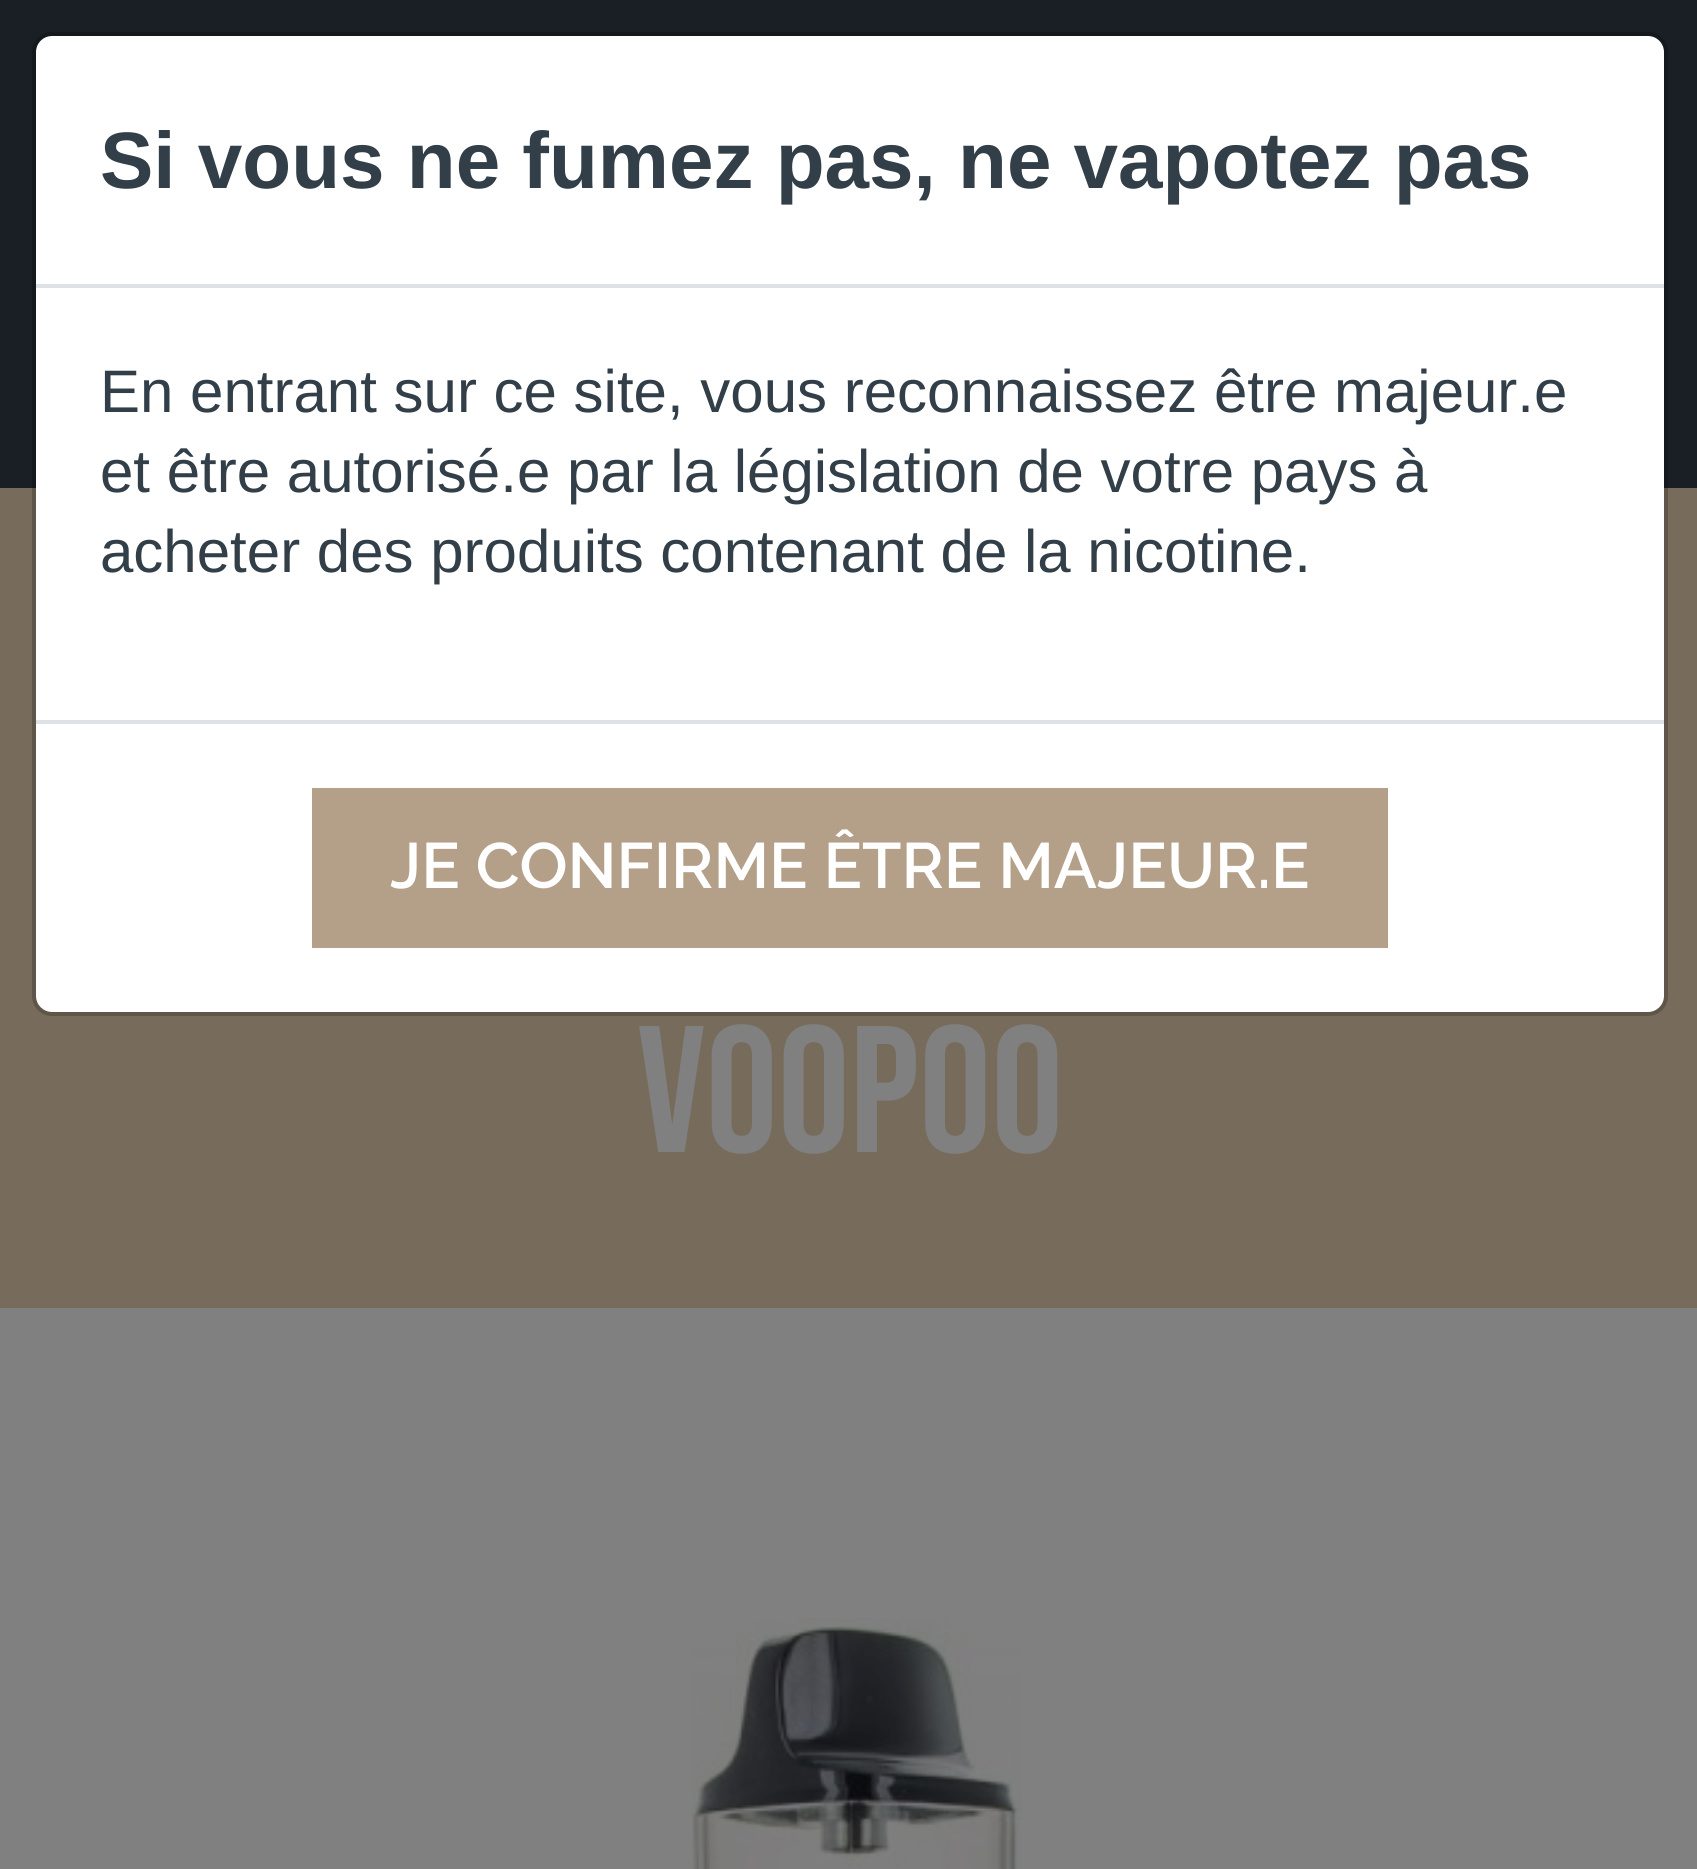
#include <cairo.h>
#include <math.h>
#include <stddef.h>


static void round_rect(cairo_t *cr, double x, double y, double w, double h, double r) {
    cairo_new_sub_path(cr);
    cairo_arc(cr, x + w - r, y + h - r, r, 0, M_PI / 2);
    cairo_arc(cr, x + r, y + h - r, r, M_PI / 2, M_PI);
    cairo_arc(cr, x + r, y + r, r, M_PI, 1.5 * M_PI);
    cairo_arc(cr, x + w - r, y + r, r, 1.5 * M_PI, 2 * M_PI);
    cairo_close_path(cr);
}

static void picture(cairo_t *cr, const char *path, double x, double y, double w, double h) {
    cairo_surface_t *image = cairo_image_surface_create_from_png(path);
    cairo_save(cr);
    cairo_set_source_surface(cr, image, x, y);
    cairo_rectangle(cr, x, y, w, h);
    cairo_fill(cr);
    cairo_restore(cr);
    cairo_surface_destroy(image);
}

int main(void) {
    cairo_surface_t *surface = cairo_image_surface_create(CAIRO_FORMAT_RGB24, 1697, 1869);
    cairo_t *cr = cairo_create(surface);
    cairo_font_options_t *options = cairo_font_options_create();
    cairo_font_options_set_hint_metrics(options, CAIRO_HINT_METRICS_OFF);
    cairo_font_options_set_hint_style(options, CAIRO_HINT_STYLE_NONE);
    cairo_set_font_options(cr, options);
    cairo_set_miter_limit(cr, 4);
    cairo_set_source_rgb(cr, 0.502, 0.502, 0.502);
    cairo_paint(cr);
    cairo_set_source_rgb(cr, 0.098, 0.122, 0.141);
    cairo_rectangle(cr, 0, 0, 1697, 488);
    cairo_fill(cr);
    cairo_set_source_rgb(cr, 0.467, 0.424, 0.357);
    cairo_rectangle(cr, 0, 488, 1697, 820);
    cairo_fill(cr);
    cairo_set_source_rgb(cr, 1, 1, 1);
    round_rect(cr, 36, 36, 1628, 976, 16);
    cairo_fill(cr);
    round_rect(cr, 34, 34, 1632, 980, 18);
    cairo_set_source_rgba(cr, 0, 0, 0, 0.2);
    cairo_set_line_width(cr, 4);
    cairo_stroke(cr);
    cairo_set_source_rgb(cr, 0.871, 0.886, 0.902);
    cairo_rectangle(cr, 36, 284, 1628, 4);
    cairo_fill(cr);
    cairo_select_font_face(cr, "Liberation Sans", CAIRO_FONT_SLANT_NORMAL, CAIRO_FONT_WEIGHT_BOLD);
    cairo_set_font_size(cr, 80);
    cairo_set_source_rgb(cr, 0.196, 0.243, 0.282);
    cairo_move_to(cr, 100, 188);
    cairo_show_text(cr, "Si vous ne fumez pas, ne vapotez pas");
    cairo_select_font_face(cr, "Liberation Sans", CAIRO_FONT_SLANT_NORMAL, CAIRO_FONT_WEIGHT_NORMAL);
    cairo_set_font_size(cr, 60);
    cairo_move_to(cr, 100, 412);
    cairo_show_text(cr, "En entrant sur ce site, vous reconnaissez être majeur.e");
    cairo_move_to(cr, 100, 492);
    cairo_show_text(cr, "et être autorisé.e par la législation de votre pays à");
    cairo_move_to(cr, 100, 572);
    cairo_show_text(cr, "acheter des produits contenant de la nicotine.");
    cairo_set_source_rgb(cr, 0.871, 0.886, 0.902);
    cairo_rectangle(cr, 36, 720, 1628, 4);
    cairo_fill(cr);
    cairo_set_source_rgb(cr, 0.706, 0.624, 0.537);
    cairo_rectangle(cr, 312, 788, 1076, 160);
    cairo_fill(cr);
    cairo_select_font_face(cr, "Raleway SemiBold", CAIRO_FONT_SLANT_NORMAL, CAIRO_FONT_WEIGHT_NORMAL);
    cairo_set_font_size(cr, 64);
    cairo_set_source_rgb(cr, 1, 1, 1);
    cairo_move_to(cr, 390, 888);
    cairo_show_text(cr, "JE CONFIRME ÊTRE MAJEUR.E");
    cairo_select_font_face(cr, "Bebas Neue", CAIRO_FONT_SLANT_NORMAL, CAIRO_FONT_WEIGHT_NORMAL);
    cairo_set_font_size(cr, 180);
    cairo_set_source_rgb(cr, 0.502, 0.502, 0.502);
    cairo_move_to(cr, 637, 1152);
    cairo_show_text(cr, "VOOPOO");
    picture(cr, "img1.png", 692, 1618, 330, 251);
    cairo_surface_write_to_png(surface, "page.png");
    cairo_font_options_destroy(options);
    cairo_destroy(cr);
    cairo_surface_destroy(surface);
    return 0;
}
